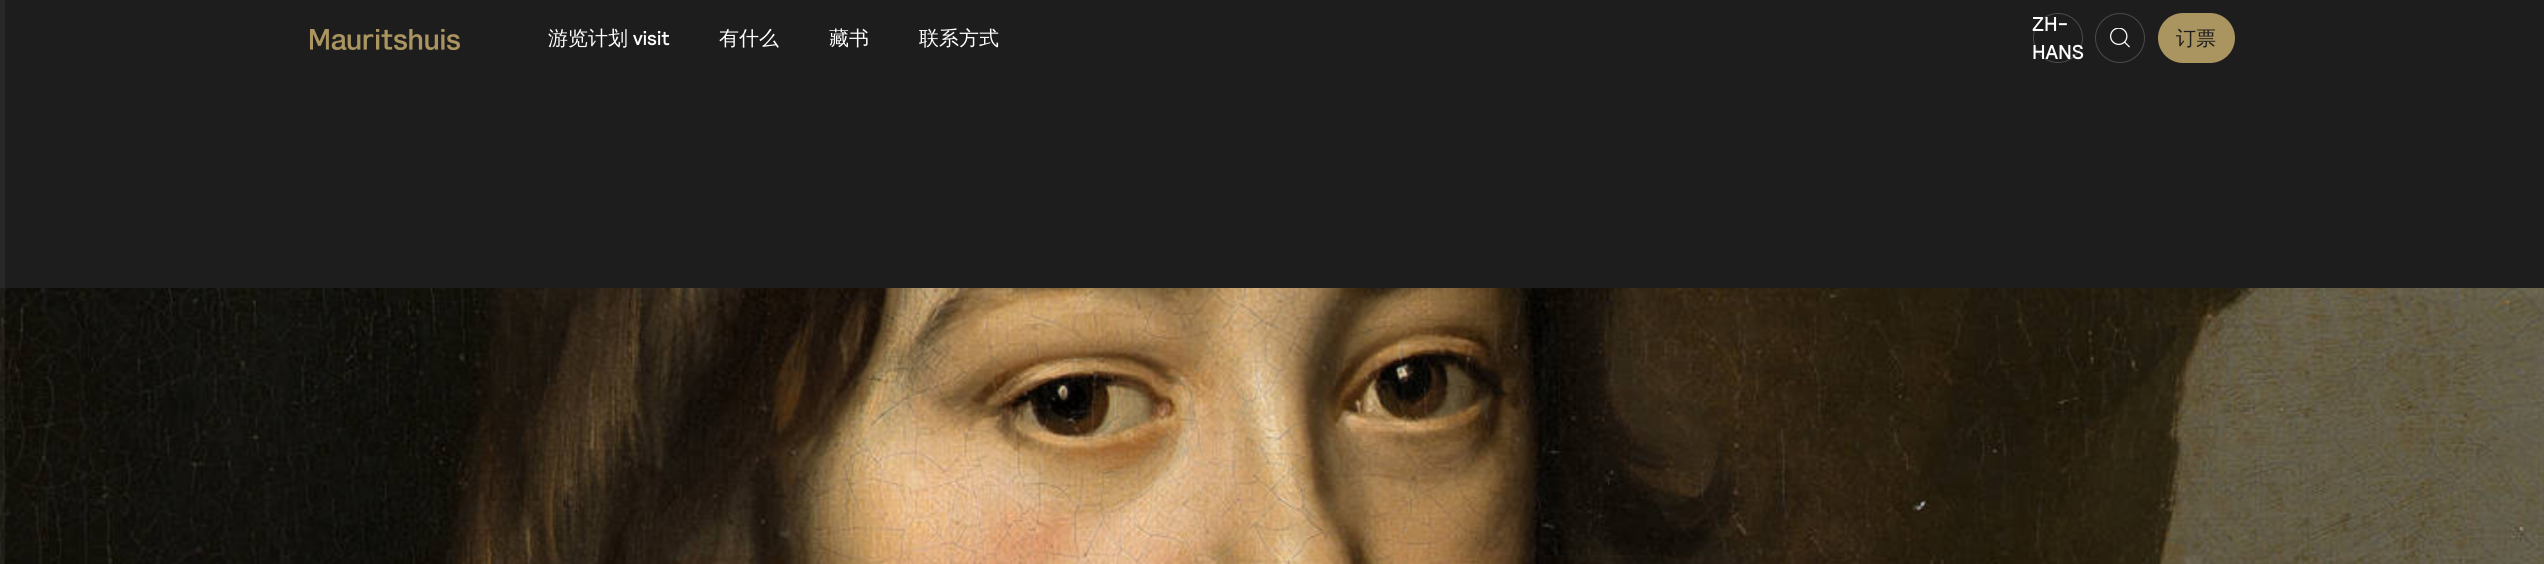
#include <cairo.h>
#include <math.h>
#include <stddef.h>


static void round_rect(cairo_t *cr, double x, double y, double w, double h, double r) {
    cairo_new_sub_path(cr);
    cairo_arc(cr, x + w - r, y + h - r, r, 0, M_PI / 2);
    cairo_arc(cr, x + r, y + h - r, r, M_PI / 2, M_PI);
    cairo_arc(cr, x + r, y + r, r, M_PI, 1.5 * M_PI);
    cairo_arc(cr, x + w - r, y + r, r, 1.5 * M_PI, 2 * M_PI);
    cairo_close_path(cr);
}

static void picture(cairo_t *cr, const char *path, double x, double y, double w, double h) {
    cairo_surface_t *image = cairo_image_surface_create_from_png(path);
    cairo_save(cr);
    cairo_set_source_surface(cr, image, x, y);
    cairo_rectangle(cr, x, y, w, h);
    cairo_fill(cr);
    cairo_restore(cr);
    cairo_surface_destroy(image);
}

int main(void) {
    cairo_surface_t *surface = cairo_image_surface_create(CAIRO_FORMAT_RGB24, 2544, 564);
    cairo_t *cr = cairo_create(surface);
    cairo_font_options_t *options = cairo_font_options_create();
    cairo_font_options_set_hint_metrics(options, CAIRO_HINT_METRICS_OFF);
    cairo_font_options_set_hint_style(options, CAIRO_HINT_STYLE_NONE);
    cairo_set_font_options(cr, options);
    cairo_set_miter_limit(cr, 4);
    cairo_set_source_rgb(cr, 0.114, 0.114, 0.114);
    cairo_paint(cr);
    picture(cr, "img1.png", 0, 288, 2544, 276);
    cairo_set_source_rgba(cr, 1, 1, 1, 0.05);
    cairo_rectangle(cr, 0, 0, 5, 564);
    cairo_fill(cr);
    picture(cr, "img2.png", 310, 29, 150, 21);
    cairo_select_font_face(cr, "WenQuanYi Zen Hei Medium", CAIRO_FONT_SLANT_NORMAL, CAIRO_FONT_WEIGHT_NORMAL);
    cairo_set_font_size(cr, 20);
    cairo_set_source_rgb(cr, 1, 1, 1);
    cairo_move_to(cr, 548, 45);
    cairo_show_text(cr, "游览计划");
    cairo_select_font_face(cr, "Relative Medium", CAIRO_FONT_SLANT_NORMAL, CAIRO_FONT_WEIGHT_NORMAL);
    cairo_move_to(cr, 633, 45);
    cairo_show_text(cr, "visit");
    cairo_select_font_face(cr, "WenQuanYi Zen Hei Medium", CAIRO_FONT_SLANT_NORMAL, CAIRO_FONT_WEIGHT_NORMAL);
    cairo_move_to(cr, 719, 45);
    cairo_show_text(cr, "有什么");
    cairo_move_to(cr, 829, 45);
    cairo_show_text(cr, "藏书");
    cairo_move_to(cr, 919, 45);
    cairo_show_text(cr, "联系方式");
    cairo_new_path(cr);
    cairo_arc(cr, 2058, 38, 24.5, 0, 2 * M_PI);
    cairo_set_source_rgb(cr, 0.29, 0.29, 0.29);
    cairo_set_line_width(cr, 1);
    cairo_stroke(cr);
    cairo_select_font_face(cr, "Relative Medium", CAIRO_FONT_SLANT_NORMAL, CAIRO_FONT_WEIGHT_NORMAL);
    cairo_set_source_rgb(cr, 1, 1, 1);
    cairo_move_to(cr, 2032, 31);
    cairo_show_text(cr, "ZH-");
    cairo_move_to(cr, 2032, 59);
    cairo_show_text(cr, "HANS");
    cairo_new_path(cr);
    cairo_arc(cr, 2120, 38, 24.5, 0, 2 * M_PI);
    cairo_set_source_rgb(cr, 0.29, 0.29, 0.29);
    cairo_stroke(cr);
    picture(cr, "img3.png", 2110, 28, 20, 20);
    cairo_set_source_rgb(cr, 0.667, 0.58, 0.373);
    round_rect(cr, 2158, 13, 77, 50, 25);
    cairo_fill(cr);
    cairo_select_font_face(cr, "WenQuanYi Zen Hei Medium", CAIRO_FONT_SLANT_NORMAL, CAIRO_FONT_WEIGHT_NORMAL);
    cairo_set_source_rgb(cr, 0.114, 0.114, 0.114);
    cairo_move_to(cr, 2176, 45);
    cairo_show_text(cr, "订票");
    cairo_surface_write_to_png(surface, "page.png");
    cairo_font_options_destroy(options);
    cairo_destroy(cr);
    cairo_surface_destroy(surface);
    return 0;
}
